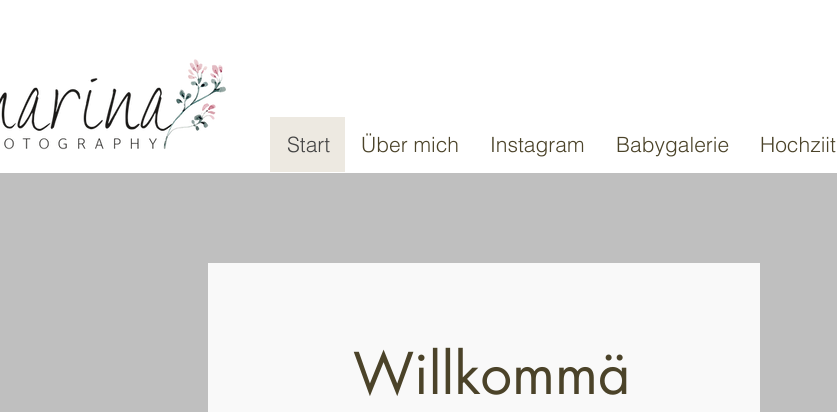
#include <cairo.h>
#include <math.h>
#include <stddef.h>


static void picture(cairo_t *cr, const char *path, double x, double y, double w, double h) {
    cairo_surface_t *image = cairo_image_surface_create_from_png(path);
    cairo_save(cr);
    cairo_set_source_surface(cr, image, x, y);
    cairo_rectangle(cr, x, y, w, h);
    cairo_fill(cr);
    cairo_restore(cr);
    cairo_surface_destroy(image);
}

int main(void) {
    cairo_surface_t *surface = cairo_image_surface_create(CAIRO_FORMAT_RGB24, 837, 412);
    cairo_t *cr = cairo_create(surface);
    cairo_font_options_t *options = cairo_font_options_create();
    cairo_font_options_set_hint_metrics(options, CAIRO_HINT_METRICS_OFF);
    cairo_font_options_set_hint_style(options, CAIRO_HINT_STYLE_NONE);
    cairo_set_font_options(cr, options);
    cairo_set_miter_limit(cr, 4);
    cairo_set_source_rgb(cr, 1, 1, 1);
    cairo_paint(cr);
    picture(cr, "img1.png", 0, 59, 226, 91);
    cairo_set_source_rgb(cr, 0.929, 0.914, 0.882);
    cairo_rectangle(cr, 270, 117, 75, 55);
    cairo_fill(cr);
    cairo_select_font_face(cr, "helvetica Light", CAIRO_FONT_SLANT_NORMAL, CAIRO_FONT_WEIGHT_NORMAL);
    cairo_set_font_size(cr, 21);
    cairo_set_source_rgb(cr, 0.267, 0.267, 0.267);
    cairo_move_to(cr, 287, 152);
    cairo_show_text(cr, "Start");
    cairo_set_source_rgb(cr, 0.294, 0.263, 0.161);
    cairo_move_to(cr, 361, 152);
    cairo_show_text(cr, "Über mich");
    cairo_move_to(cr, 490, 152);
    cairo_show_text(cr, "Instagram");
    cairo_move_to(cr, 616, 152);
    cairo_show_text(cr, "Babygalerie");
    cairo_move_to(cr, 760, 152);
    cairo_show_text(cr, "Hochziit");
    cairo_set_source_rgb(cr, 0.749, 0.749, 0.749);
    cairo_rectangle(cr, 0, 173, 837, 239);
    cairo_fill(cr);
    cairo_set_source_rgb(cr, 0.976, 0.976, 0.976);
    cairo_rectangle(cr, 208, 263, 552, 149);
    cairo_fill(cr);
    cairo_select_font_face(cr, "futura", CAIRO_FONT_SLANT_NORMAL, CAIRO_FONT_WEIGHT_NORMAL);
    cairo_set_font_size(cr, 56);
    cairo_set_source_rgb(cr, 0.294, 0.263, 0.161);
    cairo_move_to(cr, 353, 394);
    cairo_show_text(cr, "Willkommä");
    cairo_surface_write_to_png(surface, "page.png");
    cairo_font_options_destroy(options);
    cairo_destroy(cr);
    cairo_surface_destroy(surface);
    return 0;
}
